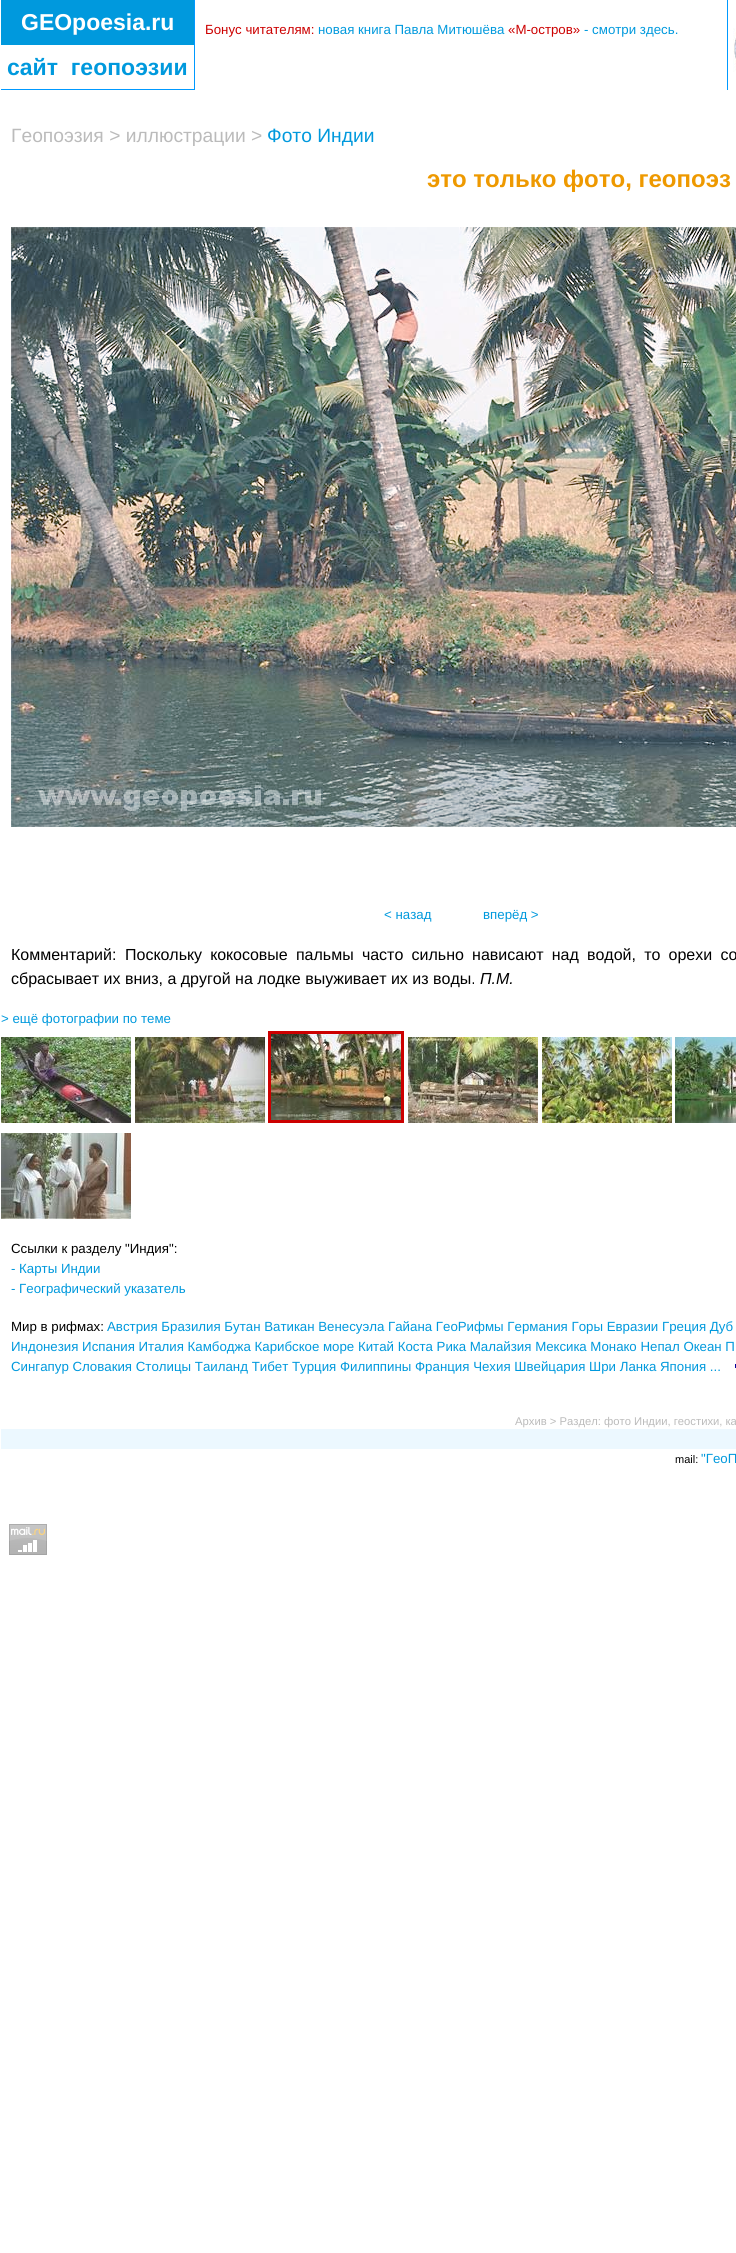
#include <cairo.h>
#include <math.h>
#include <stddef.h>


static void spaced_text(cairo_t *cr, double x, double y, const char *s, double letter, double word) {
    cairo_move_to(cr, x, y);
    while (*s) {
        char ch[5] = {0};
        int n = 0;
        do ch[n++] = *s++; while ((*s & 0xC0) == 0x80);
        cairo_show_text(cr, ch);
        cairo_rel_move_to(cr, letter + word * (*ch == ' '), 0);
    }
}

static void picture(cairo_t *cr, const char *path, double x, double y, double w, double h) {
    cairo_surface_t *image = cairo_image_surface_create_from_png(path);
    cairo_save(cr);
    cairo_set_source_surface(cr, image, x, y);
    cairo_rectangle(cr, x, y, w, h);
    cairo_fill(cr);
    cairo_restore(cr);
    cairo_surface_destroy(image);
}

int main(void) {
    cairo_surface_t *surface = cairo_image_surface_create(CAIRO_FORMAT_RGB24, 736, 2253);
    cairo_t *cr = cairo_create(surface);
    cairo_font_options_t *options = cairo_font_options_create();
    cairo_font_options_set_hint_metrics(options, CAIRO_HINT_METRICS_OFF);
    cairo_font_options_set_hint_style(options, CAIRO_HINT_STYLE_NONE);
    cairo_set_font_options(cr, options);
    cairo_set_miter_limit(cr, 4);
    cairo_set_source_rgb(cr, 1, 1, 1);
    cairo_paint(cr);
    cairo_set_source_rgb(cr, 0, 0.6, 1);
    cairo_rectangle(cr, 1, 89, 193, 1);
    cairo_fill(cr);
    cairo_set_source_rgb(cr, 0, 0.6, 0.867);
    cairo_rectangle(cr, 1, 0, 193, 45);
    cairo_fill(cr);
    cairo_select_font_face(cr, "Liberation Sans", CAIRO_FONT_SLANT_NORMAL, CAIRO_FONT_WEIGHT_BOLD);
    cairo_set_font_size(cr, 23);
    cairo_set_source_rgb(cr, 1, 1, 1);
    cairo_move_to(cr, 21, 30);
    cairo_show_text(cr, "GEOpoesia.ru");
    cairo_set_source_rgb(cr, 0, 0.6, 0.867);
    cairo_move_to(cr, 7, 75);
    cairo_show_text(cr, "сайт  геопоэзии");
    cairo_set_source_rgb(cr, 0, 0.6, 1);
    cairo_rectangle(cr, 194, 0, 1, 90);
    cairo_fill(cr);
    cairo_select_font_face(cr, "Liberation Sans", CAIRO_FONT_SLANT_NORMAL, CAIRO_FONT_WEIGHT_NORMAL);
    cairo_set_font_size(cr, 13.28);
    cairo_set_source_rgb(cr, 0.8, 0, 0);
    cairo_move_to(cr, 205, 34);
    cairo_show_text(cr, "Бонус читателям:");
    cairo_set_source_rgb(cr, 0, 0.6, 0.867);
    cairo_move_to(cr, 318, 34);
    cairo_show_text(cr, "новая книга Павла Митюшёва");
    cairo_set_source_rgb(cr, 0.8, 0, 0);
    cairo_move_to(cr, 508, 34);
    cairo_show_text(cr, "«М-остров»");
    cairo_set_source_rgb(cr, 0, 0.6, 0.867);
    cairo_move_to(cr, 584, 34);
    cairo_show_text(cr, "- смотри здесь.");
    cairo_set_source_rgb(cr, 0, 0.6, 1);
    cairo_rectangle(cr, 727, 0, 1, 90);
    cairo_fill(cr);
    picture(cr, "img1.png", 733, 28, 3, 44);
    cairo_set_font_size(cr, 19.25);
    cairo_set_source_rgb(cr, 0.733, 0.733, 0.733);
    cairo_move_to(cr, 11, 142);
    cairo_show_text(cr, "Геопоэзия > иллюстрации >");
    cairo_set_source_rgb(cr, 0, 0.6, 0.867);
    cairo_move_to(cr, 267, 142);
    cairo_show_text(cr, "Фото Индии");
    cairo_select_font_face(cr, "Liberation Sans", CAIRO_FONT_SLANT_NORMAL, CAIRO_FONT_WEIGHT_BOLD);
    cairo_set_font_size(cr, 24);
    cairo_set_source_rgb(cr, 0.933, 0.6, 0);
    cairo_move_to(cr, 427, 187);
    cairo_show_text(cr, "это только фото, геопоэз");
    picture(cr, "img2.png", 11, 227, 725, 600);
    cairo_select_font_face(cr, "Liberation Sans", CAIRO_FONT_SLANT_NORMAL, CAIRO_FONT_WEIGHT_NORMAL);
    cairo_set_font_size(cr, 13.28);
    cairo_set_source_rgb(cr, 0, 0.6, 0.867);
    cairo_move_to(cr, 384, 919);
    cairo_show_text(cr, "< назад");
    cairo_move_to(cr, 483, 919);
    cairo_show_text(cr, "вперёд >");
    cairo_set_font_size(cr, 16);
    cairo_set_source_rgb(cr, 0, 0, 0);
    cairo_move_to(cr, 11, 960);
    cairo_show_text(cr, "Комментарий:");
    spaced_text(cr, 125, 960, "Поскольку кокосовые пальмы часто сильно нависают над водой, то орехи со", 0, 3.75);
    cairo_move_to(cr, 11, 984);
    cairo_show_text(cr, "сбрасывает их вниз, а другой на лодке выуживает их из воды.");
    cairo_select_font_face(cr, "Liberation Sans", CAIRO_FONT_SLANT_ITALIC, CAIRO_FONT_WEIGHT_NORMAL);
    cairo_move_to(cr, 480, 984);
    cairo_show_text(cr, "П.М.");
    cairo_select_font_face(cr, "Liberation Sans", CAIRO_FONT_SLANT_NORMAL, CAIRO_FONT_WEIGHT_NORMAL);
    cairo_set_font_size(cr, 13.28);
    cairo_set_source_rgb(cr, 0, 0.6, 0.867);
    cairo_move_to(cr, 1, 1023);
    cairo_show_text(cr, "> ещё фотографии по теме");
    cairo_rectangle(cr, 269.5, 1032.5, 133, 89);
    cairo_set_source_rgb(cr, 0.8, 0, 0);
    cairo_set_line_width(cr, 3);
    cairo_stroke(cr);
    picture(cr, "img3.png", 1, 1037, 130, 86);
    picture(cr, "img4.png", 135, 1037, 130, 86);
    picture(cr, "img5.png", 271, 1034, 130, 86);
    picture(cr, "img6.png", 408, 1037, 130, 86);
    picture(cr, "img7.png", 542, 1037, 130, 86);
    picture(cr, "img8.png", 675, 1037, 61, 86);
    picture(cr, "img9.png", 1, 1133, 130, 86);
    cairo_set_source_rgb(cr, 0, 0, 0);
    cairo_move_to(cr, 11, 1253);
    cairo_show_text(cr, "Ссылки к разделу \"Индия\":");
    cairo_set_source_rgb(cr, 0, 0.6, 0.867);
    cairo_move_to(cr, 11, 1273);
    cairo_show_text(cr, "- Карты Индии");
    cairo_move_to(cr, 11, 1293);
    cairo_show_text(cr, "- Географический указатель");
    cairo_set_source_rgb(cr, 0, 0, 0);
    cairo_move_to(cr, 11, 1331);
    cairo_show_text(cr, "Мир в рифмах:");
    cairo_set_source_rgb(cr, 0, 0.6, 0.867);
    cairo_move_to(cr, 107, 1331);
    cairo_show_text(cr, "Австрия Бразилия Бутан Ватикан Венесуэла Гайана ГеоРифмы Германия Горы Евразии Греция Дуб");
    cairo_move_to(cr, 11, 1351);
    cairo_show_text(cr, "Индонезия Испания Италия Камбоджа Карибское море Китай Коста Рика Малайзия Мексика Монако Непал Океан П");
    cairo_move_to(cr, 11, 1371);
    cairo_show_text(cr, "Сингапур Словакия Столицы Таиланд Тибет Турция Филиппины Франция Чехия Швейцария Шри Ланка Япония ...");
    picture(cr, "img10.png", 735, 1363, 1, 5);
    cairo_set_font_size(cr, 11.25);
    cairo_set_source_rgb(cr, 0.733, 0.733, 0.733);
    cairo_move_to(cr, 515, 1425);
    cairo_show_text(cr, "Архив > Раздел: фото Индии, геостихи, ка");
    cairo_set_source_rgb(cr, 0.922, 0.969, 1);
    cairo_rectangle(cr, 1, 1429, 735, 20);
    cairo_fill(cr);
    cairo_set_font_size(cr, 11);
    cairo_set_source_rgb(cr, 0, 0, 0);
    cairo_move_to(cr, 675, 1463);
    cairo_show_text(cr, "mail:");
    cairo_set_font_size(cr, 13.28);
    cairo_set_source_rgb(cr, 0, 0.6, 0.867);
    cairo_move_to(cr, 701, 1463);
    cairo_show_text(cr, "\"ГеоП");
    picture(cr, "img11.png", 9, 1524, 38, 31);
    cairo_surface_write_to_png(surface, "page.png");
    cairo_font_options_destroy(options);
    cairo_destroy(cr);
    cairo_surface_destroy(surface);
    return 0;
}
